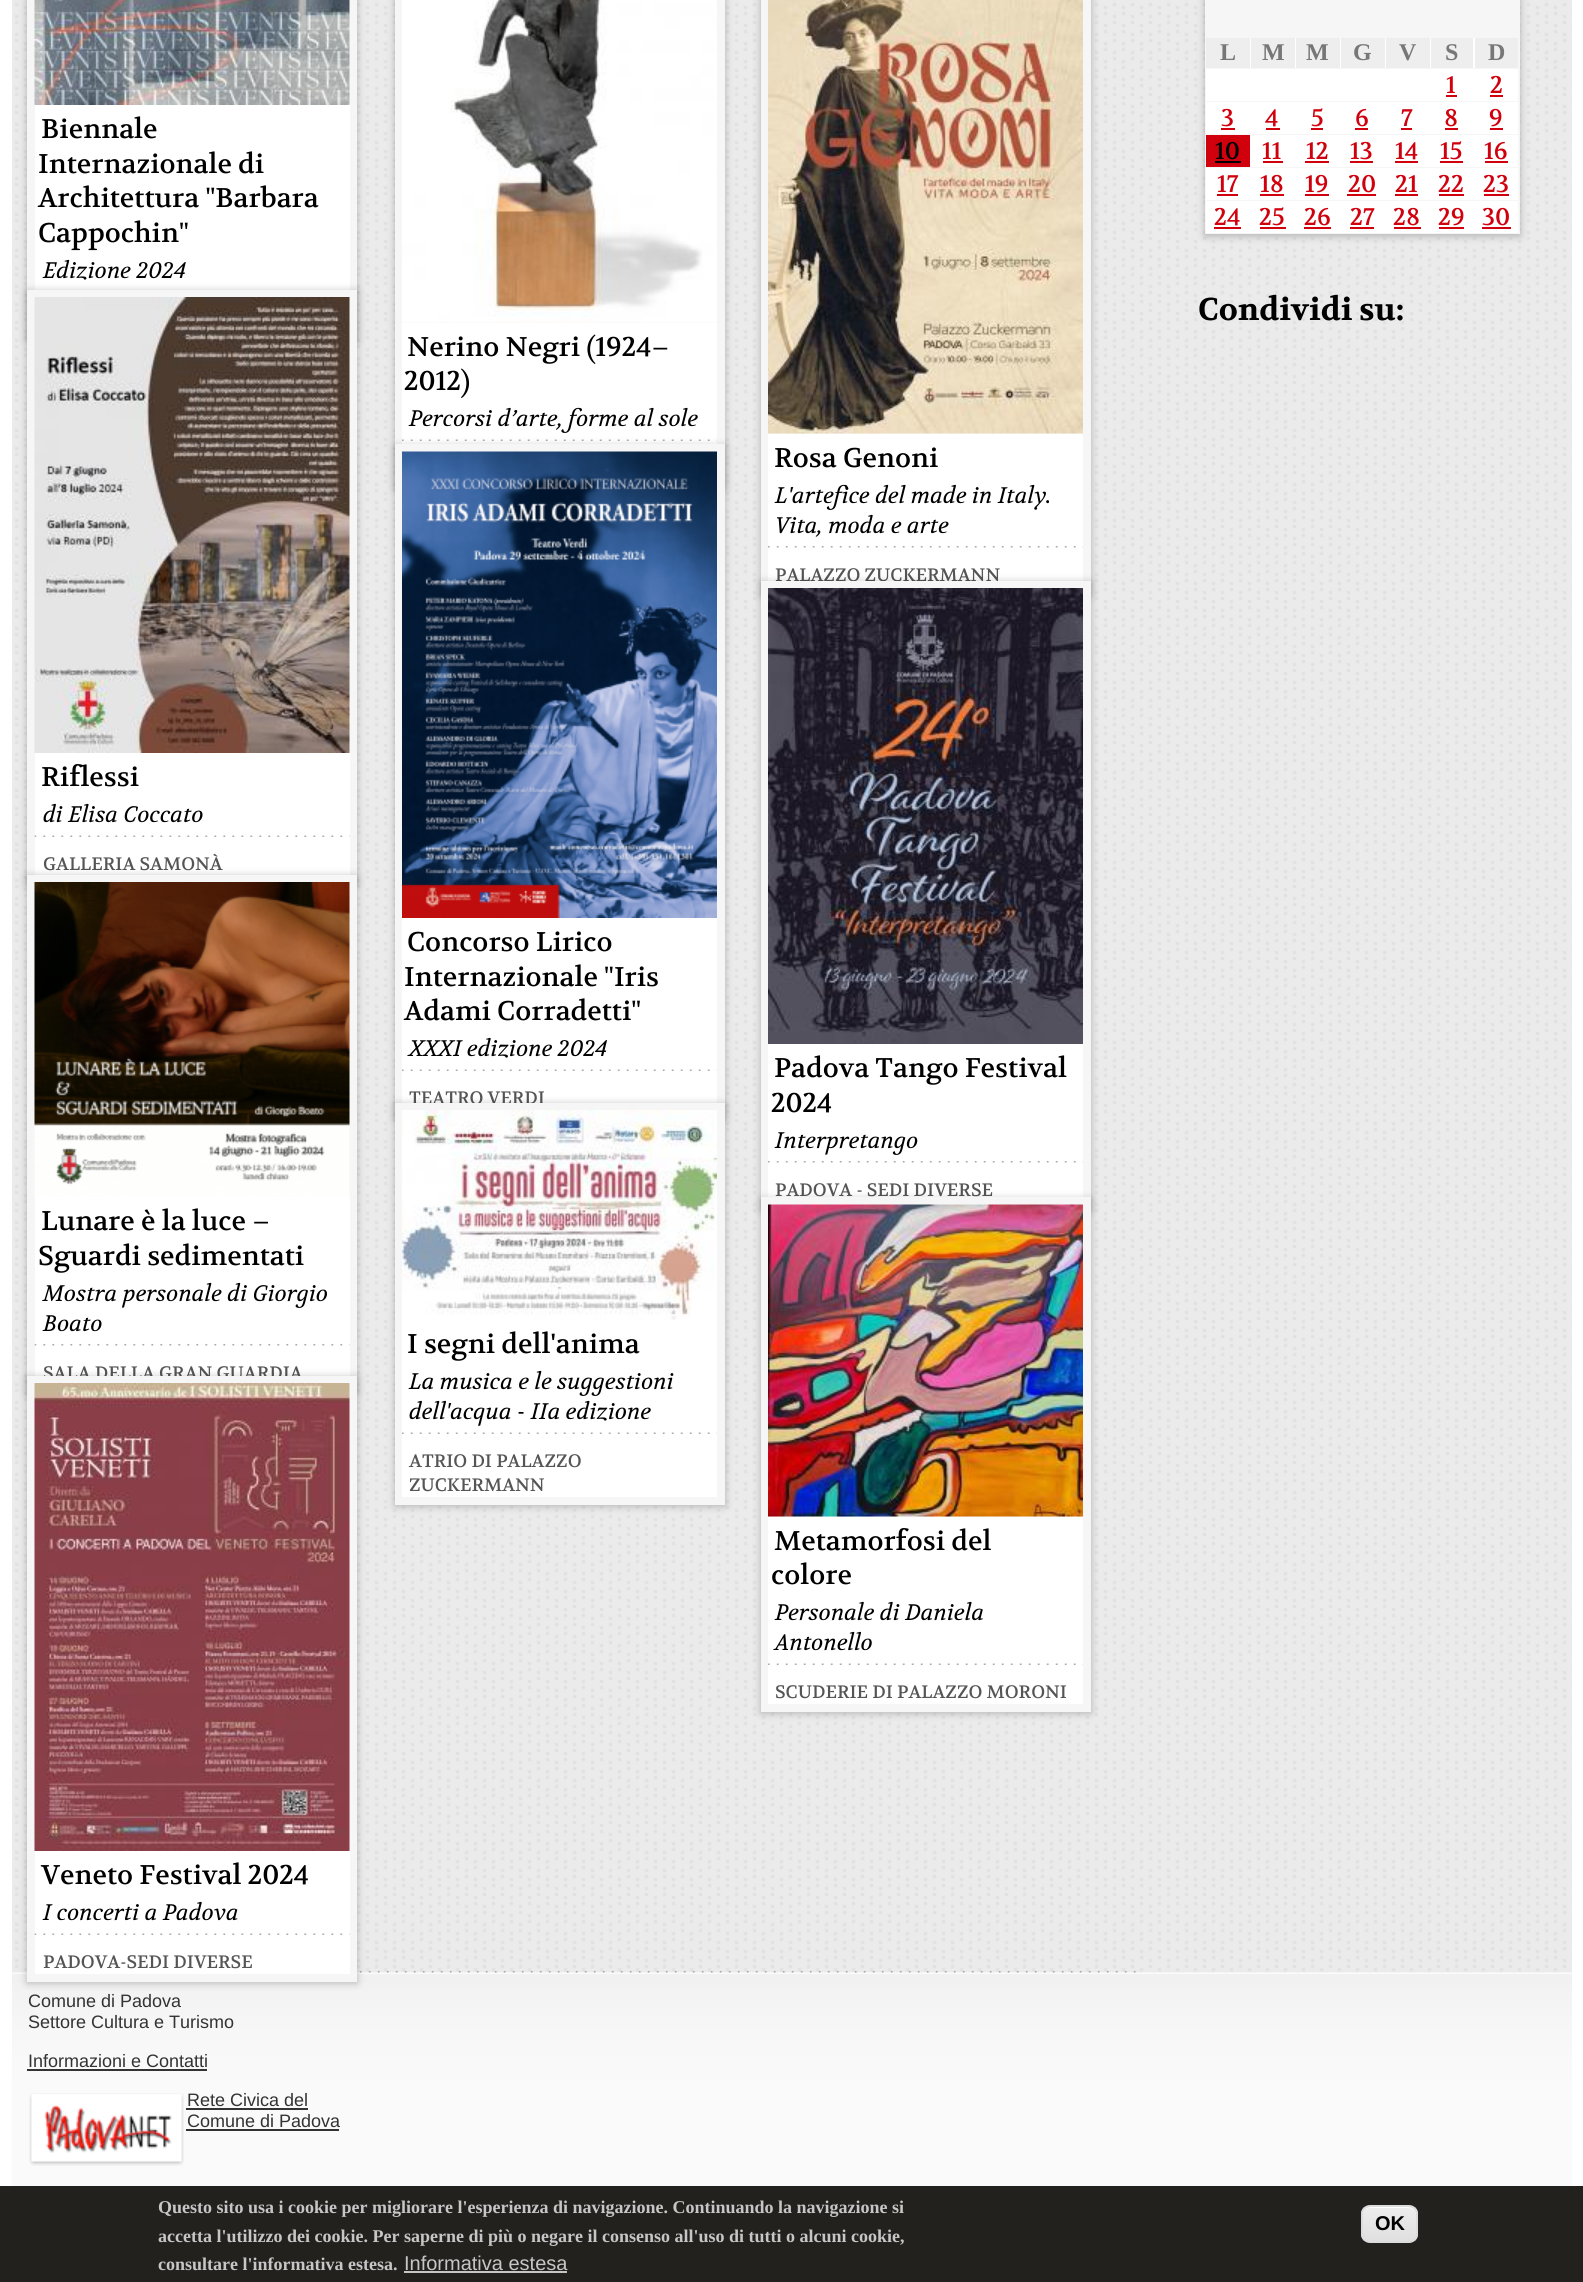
#include <cairo.h>
#include <math.h>
#include <stddef.h>


static void round_rect(cairo_t *cr, double x, double y, double w, double h, double r) {
    cairo_new_sub_path(cr);
    cairo_arc(cr, x + w - r, y + h - r, r, 0, M_PI / 2);
    cairo_arc(cr, x + r, y + h - r, r, M_PI / 2, M_PI);
    cairo_arc(cr, x + r, y + r, r, M_PI, 1.5 * M_PI);
    cairo_arc(cr, x + w - r, y + r, r, 1.5 * M_PI, 2 * M_PI);
    cairo_close_path(cr);
}

static void shadow(cairo_t *cr, double x, double y, double w, double h, double r, double blur, double alpha) {
    cairo_push_group_with_content(cr, CAIRO_CONTENT_ALPHA);
    cairo_set_operator(cr, CAIRO_OPERATOR_SOURCE);
    for (int i = 15; i >= -15 && fmin(w, h) + blur * i / 3 > 0; i -= 2) {
        double e = blur * i / 6;
        cairo_set_source_rgba(cr, 0, 0, 0, alpha * erfc((i - 1) / 8.5) / 2);
        round_rect(cr, x - e, y - e, w + 2 * e, h + 2 * e, fmax(0, fmin(r + e + blur * .6, fmin(w, h) / 2 + e)));
        cairo_fill(cr);
    }
    cairo_pattern_t *soft = cairo_pop_group(cr);
    cairo_mask(cr, soft);
    cairo_pattern_destroy(soft);
}

static void picture(cairo_t *cr, const char *path, double x, double y, double w, double h) {
    cairo_surface_t *image = cairo_image_surface_create_from_png(path);
    cairo_save(cr);
    cairo_set_source_surface(cr, image, x, y);
    cairo_rectangle(cr, x, y, w, h);
    cairo_fill(cr);
    cairo_restore(cr);
    cairo_surface_destroy(image);
}

int main(void) {
    cairo_surface_t *surface = cairo_image_surface_create(CAIRO_FORMAT_RGB24, 1583, 2282);
    cairo_t *cr = cairo_create(surface);
    cairo_font_options_t *options = cairo_font_options_create();
    cairo_font_options_set_hint_metrics(options, CAIRO_HINT_METRICS_OFF);
    cairo_font_options_set_hint_style(options, CAIRO_HINT_STYLE_NONE);
    cairo_set_font_options(cr, options);
    cairo_set_miter_limit(cr, 4);
    cairo_pattern_t *gradient;
    cairo_set_source_rgb(cr, 1, 1, 1);
    cairo_paint(cr);
    picture(cr, "img1.png", 12, 0, 1560, 1973);
    picture(cr, "img2.png", 359, 1971, 777, 2);
    cairo_set_source_rgb(cr, 0, 0, 0);
    shadow(cr, 27, -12, 330, 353, 0, 4, 0.25);
    cairo_set_source_rgb(cr, 0.961, 0.961, 0.961);
    cairo_rectangle(cr, 27, 0, 330, 290);
    cairo_fill(cr);
    picture(cr, "img3.png", 34, 0, 316, 105);
    cairo_set_source_rgb(cr, 1, 1, 1);
    cairo_rectangle(cr, 35, 105, 315, 185);
    cairo_fill(cr);
    cairo_select_font_face(cr, "Volkhov", CAIRO_FONT_SLANT_NORMAL, CAIRO_FONT_WEIGHT_NORMAL);
    cairo_set_font_size(cr, 27);
    cairo_set_source_rgb(cr, 0, 0, 0);
    cairo_move_to(cr, 41, 138);
    cairo_show_text(cr, "Biennale");
    cairo_move_to(cr, 38, 173);
    cairo_show_text(cr, "Internazionale di");
    cairo_move_to(cr, 38, 207);
    cairo_show_text(cr, "Architettura \"Barbara");
    cairo_move_to(cr, 38, 242);
    cairo_show_text(cr, "Cappochin\"");
    cairo_select_font_face(cr, "Volkhov", CAIRO_FONT_SLANT_ITALIC, CAIRO_FONT_WEIGHT_NORMAL);
    cairo_set_font_size(cr, 22.5);
    cairo_move_to(cr, 43, 278);
    cairo_show_text(cr, "Edizione 2024");
    cairo_set_source_rgb(cr, 0, 0, 0);
    shadow(cr, 395, -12, 330, 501, 0, 4, 0.25);
    cairo_set_source_rgb(cr, 0.961, 0.961, 0.961);
    cairo_rectangle(cr, 395, 0, 330, 444);
    cairo_fill(cr);
    picture(cr, "img4.png", 402, 0, 315, 323);
    cairo_set_source_rgb(cr, 1, 1, 1);
    cairo_rectangle(cr, 402, 323, 315, 121);
    cairo_fill(cr);
    cairo_select_font_face(cr, "Volkhov", CAIRO_FONT_SLANT_NORMAL, CAIRO_FONT_WEIGHT_NORMAL);
    cairo_set_font_size(cr, 27);
    cairo_set_source_rgb(cr, 0, 0, 0);
    cairo_move_to(cr, 407, 356);
    cairo_show_text(cr, "Nerino Negri (1924–");
    cairo_move_to(cr, 404, 390);
    cairo_show_text(cr, "2012)");
    picture(cr, "img5.png", 402, 439, 315, 2);
    cairo_select_font_face(cr, "Volkhov", CAIRO_FONT_SLANT_ITALIC, CAIRO_FONT_WEIGHT_NORMAL);
    cairo_set_font_size(cr, 22.5);
    cairo_move_to(cr, 409, 426);
    cairo_show_text(cr, "Percorsi d’arte, forme al sole");
    cairo_set_source_rgb(cr, 0, 0, 0);
    shadow(cr, 761, -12, 330, 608, 0, 4, 0.25);
    cairo_set_source_rgb(cr, 0.961, 0.961, 0.961);
    cairo_rectangle(cr, 761, 0, 330, 581);
    cairo_fill(cr);
    picture(cr, "img6.png", 768, 0, 315, 434);
    cairo_set_source_rgb(cr, 1, 1, 1);
    cairo_rectangle(cr, 768, 434, 315, 147);
    cairo_fill(cr);
    cairo_select_font_face(cr, "Volkhov", CAIRO_FONT_SLANT_NORMAL, CAIRO_FONT_WEIGHT_NORMAL);
    cairo_set_font_size(cr, 27);
    cairo_set_source_rgb(cr, 0, 0, 0);
    cairo_move_to(cr, 774, 467);
    cairo_show_text(cr, "Rosa Genoni");
    picture(cr, "img7.png", 768, 546, 315, 2);
    cairo_select_font_face(cr, "Volkhov", CAIRO_FONT_SLANT_ITALIC, CAIRO_FONT_WEIGHT_NORMAL);
    cairo_set_font_size(cr, 22.5);
    cairo_move_to(cr, 775, 503);
    cairo_show_text(cr, "L'artefice del made in Italy.");
    cairo_move_to(cr, 775, 533);
    cairo_show_text(cr, "Vita, moda e arte");
    cairo_select_font_face(cr, "Volkhov", CAIRO_FONT_SLANT_NORMAL, CAIRO_FONT_WEIGHT_NORMAL);
    cairo_set_font_size(cr, 18);
    cairo_set_source_rgb(cr, 0.333, 0.333, 0.333);
    cairo_move_to(cr, 775, 581);
    cairo_show_text(cr, "PALAZZO ZUCKERMANN");
    cairo_set_source_rgb(cr, 0, 0, 0);
    shadow(cr, 27, 291, 330, 594, 0, 4, 0.25);
    cairo_set_source_rgb(cr, 0.961, 0.961, 0.961);
    cairo_rectangle(cr, 27, 290, 330, 585);
    cairo_fill(cr);
    picture(cr, "img8.png", 34, 297, 316, 456);
    cairo_set_source_rgb(cr, 1, 1, 1);
    cairo_rectangle(cr, 35, 753, 315, 122);
    cairo_fill(cr);
    cairo_set_font_size(cr, 27);
    cairo_set_source_rgb(cr, 0, 0, 0);
    cairo_move_to(cr, 41, 786);
    cairo_show_text(cr, "Riflessi");
    picture(cr, "img9.png", 34, 835, 316, 2);
    cairo_select_font_face(cr, "Volkhov", CAIRO_FONT_SLANT_ITALIC, CAIRO_FONT_WEIGHT_NORMAL);
    cairo_set_font_size(cr, 22.5);
    cairo_move_to(cr, 43, 822);
    cairo_show_text(cr, "di Elisa Coccato");
    cairo_select_font_face(cr, "Volkhov", CAIRO_FONT_SLANT_NORMAL, CAIRO_FONT_WEIGHT_NORMAL);
    cairo_set_font_size(cr, 18);
    cairo_set_source_rgb(cr, 0.333, 0.333, 0.333);
    cairo_move_to(cr, 43, 870);
    cairo_show_text(cr, "GALLERIA SAMONÀ");
    cairo_set_source_rgb(cr, 0, 0, 0);
    shadow(cr, 395, 446, 330, 673, 0, 4, 0.25);
    cairo_set_source_rgb(cr, 0.961, 0.961, 0.961);
    cairo_rectangle(cr, 395, 444, 330, 659);
    cairo_fill(cr);
    picture(cr, "img10.png", 402, 451, 315, 467);
    cairo_set_source_rgb(cr, 1, 1, 1);
    cairo_rectangle(cr, 402, 918, 315, 185);
    cairo_fill(cr);
    cairo_set_font_size(cr, 27);
    cairo_set_source_rgb(cr, 0, 0, 0);
    cairo_move_to(cr, 407, 951);
    cairo_show_text(cr, "Concorso Lirico");
    cairo_move_to(cr, 404, 986);
    cairo_show_text(cr, "Internazionale \"Iris");
    cairo_move_to(cr, 404, 1020);
    cairo_show_text(cr, "Adami Corradetti\"");
    picture(cr, "img5.png", 402, 1069, 315, 2);
    cairo_select_font_face(cr, "Volkhov", CAIRO_FONT_SLANT_ITALIC, CAIRO_FONT_WEIGHT_NORMAL);
    cairo_set_font_size(cr, 22.5);
    cairo_move_to(cr, 409, 1056);
    cairo_show_text(cr, "XXXI edizione 2024");
    cairo_select_font_face(cr, "Volkhov", CAIRO_FONT_SLANT_NORMAL, CAIRO_FONT_WEIGHT_NORMAL);
    cairo_set_font_size(cr, 18);
    cairo_set_source_rgb(cr, 0.333, 0.333, 0.333);
    cairo_move_to(cr, 409, 1104);
    cairo_show_text(cr, "TEATRO VERDI");
    cairo_set_source_rgb(cr, 0, 0, 0);
    shadow(cr, 761, 582, 330, 629, 0, 4, 0.25);
    cairo_set_source_rgb(cr, 0.961, 0.961, 0.961);
    cairo_rectangle(cr, 761, 581, 330, 616);
    cairo_fill(cr);
    picture(cr, "img11.png", 768, 588, 315, 456);
    cairo_set_source_rgb(cr, 1, 1, 1);
    cairo_rectangle(cr, 768, 1044, 315, 153);
    cairo_fill(cr);
    cairo_set_font_size(cr, 27);
    cairo_set_source_rgb(cr, 0, 0, 0);
    cairo_move_to(cr, 774, 1077);
    cairo_show_text(cr, "Padova Tango Festival");
    cairo_move_to(cr, 771, 1112);
    cairo_show_text(cr, "2024");
    picture(cr, "img7.png", 768, 1161, 315, 2);
    cairo_select_font_face(cr, "Volkhov", CAIRO_FONT_SLANT_ITALIC, CAIRO_FONT_WEIGHT_NORMAL);
    cairo_set_font_size(cr, 22.5);
    cairo_move_to(cr, 775, 1148);
    cairo_show_text(cr, "Interpretango");
    cairo_select_font_face(cr, "Volkhov", CAIRO_FONT_SLANT_NORMAL, CAIRO_FONT_WEIGHT_NORMAL);
    cairo_set_font_size(cr, 18);
    cairo_set_source_rgb(cr, 0.333, 0.333, 0.333);
    cairo_move_to(cr, 775, 1196);
    cairo_show_text(cr, "PADOVA - SEDI DIVERSE");
    cairo_set_source_rgb(cr, 0, 0, 0);
    shadow(cr, 27, 876, 330, 518, 0, 4, 0.25);
    cairo_set_source_rgb(cr, 0.961, 0.961, 0.961);
    cairo_rectangle(cr, 27, 875, 330, 501);
    cairo_fill(cr);
    picture(cr, "img12.png", 34, 882, 316, 315);
    cairo_set_source_rgb(cr, 1, 1, 1);
    cairo_rectangle(cr, 35, 1197, 315, 179);
    cairo_fill(cr);
    cairo_set_font_size(cr, 27);
    cairo_set_source_rgb(cr, 0, 0, 0);
    cairo_move_to(cr, 41, 1230);
    cairo_show_text(cr, "Lunare è la luce –");
    cairo_move_to(cr, 38, 1265);
    cairo_show_text(cr, "Sguardi sedimentati");
    picture(cr, "img13.png", 34, 1344, 316, 2);
    cairo_select_font_face(cr, "Volkhov", CAIRO_FONT_SLANT_ITALIC, CAIRO_FONT_WEIGHT_NORMAL);
    cairo_set_font_size(cr, 22.5);
    cairo_move_to(cr, 43, 1301);
    cairo_show_text(cr, "Mostra personale di Giorgio");
    cairo_move_to(cr, 43, 1331);
    cairo_show_text(cr, "Boato");
    cairo_select_font_face(cr, "Volkhov", CAIRO_FONT_SLANT_NORMAL, CAIRO_FONT_WEIGHT_NORMAL);
    cairo_set_font_size(cr, 18);
    cairo_set_source_rgb(cr, 0.333, 0.333, 0.333);
    cairo_move_to(cr, 43, 1379);
    cairo_show_text(cr, "SALA DELLA GRAN GUARDIA");
    cairo_set_source_rgb(cr, 0, 0, 0);
    shadow(cr, 395, 1104, 330, 402, 0, 4, 0.25);
    cairo_set_source_rgb(cr, 0.961, 0.961, 0.961);
    cairo_rectangle(cr, 395, 1103, 330, 402);
    cairo_fill(cr);
    picture(cr, "img14.png", 402, 1110, 315, 210);
    cairo_set_source_rgb(cr, 1, 1, 1);
    cairo_rectangle(cr, 402, 1320, 315, 177);
    cairo_fill(cr);
    cairo_set_font_size(cr, 27);
    cairo_set_source_rgb(cr, 0, 0, 0);
    cairo_move_to(cr, 407, 1353);
    cairo_show_text(cr, "I segni dell'anima");
    picture(cr, "img5.png", 402, 1432, 315, 2);
    cairo_select_font_face(cr, "Volkhov", CAIRO_FONT_SLANT_ITALIC, CAIRO_FONT_WEIGHT_NORMAL);
    cairo_set_font_size(cr, 22.5);
    cairo_move_to(cr, 409, 1389);
    cairo_show_text(cr, "La musica e le suggestioni");
    cairo_move_to(cr, 409, 1419);
    cairo_show_text(cr, "dell'acqua - IIa edizione");
    cairo_select_font_face(cr, "Volkhov", CAIRO_FONT_SLANT_NORMAL, CAIRO_FONT_WEIGHT_NORMAL);
    cairo_set_font_size(cr, 18);
    cairo_set_source_rgb(cr, 0.333, 0.333, 0.333);
    cairo_move_to(cr, 409, 1467);
    cairo_show_text(cr, "ATRIO DI PALAZZO");
    cairo_move_to(cr, 409, 1491);
    cairo_show_text(cr, "ZUCKERMANN");
    cairo_set_source_rgb(cr, 0, 0, 0);
    shadow(cr, 761, 1199, 330, 514, 0, 4, 0.25);
    cairo_set_source_rgb(cr, 0.961, 0.961, 0.961);
    cairo_rectangle(cr, 761, 1197, 330, 515);
    cairo_fill(cr);
    picture(cr, "img15.png", 768, 1204, 315, 313);
    cairo_set_source_rgb(cr, 1, 1, 1);
    cairo_rectangle(cr, 768, 1517, 315, 187);
    cairo_fill(cr);
    cairo_set_font_size(cr, 27);
    cairo_set_source_rgb(cr, 0, 0, 0);
    cairo_move_to(cr, 774, 1550);
    cairo_show_text(cr, "Metamorfosi del");
    cairo_move_to(cr, 771, 1584);
    cairo_show_text(cr, "colore");
    picture(cr, "img5.png", 768, 1663, 315, 2);
    cairo_select_font_face(cr, "Volkhov", CAIRO_FONT_SLANT_ITALIC, CAIRO_FONT_WEIGHT_NORMAL);
    cairo_set_font_size(cr, 22.5);
    cairo_move_to(cr, 775, 1620);
    cairo_show_text(cr, "Personale di Daniela");
    cairo_move_to(cr, 775, 1650);
    cairo_show_text(cr, "Antonello");
    cairo_select_font_face(cr, "Volkhov", CAIRO_FONT_SLANT_NORMAL, CAIRO_FONT_WEIGHT_NORMAL);
    cairo_set_font_size(cr, 18);
    cairo_set_source_rgb(cr, 0.333, 0.333, 0.333);
    cairo_move_to(cr, 775, 1698);
    cairo_show_text(cr, "SCUDERIE DI PALAZZO MORONI");
    picture(cr, "img17.png", 12, 1973, 1560, 213);
    cairo_set_source_rgb(cr, 0, 0, 0);
    shadow(cr, 27, 1377, 330, 606, 0, 4, 0.25);
    cairo_set_source_rgb(cr, 0.961, 0.961, 0.961);
    cairo_rectangle(cr, 27, 1376, 330, 606);
    cairo_fill(cr);
    picture(cr, "img16.png", 34, 1383, 316, 468);
    cairo_set_source_rgb(cr, 1, 1, 1);
    cairo_rectangle(cr, 35, 1851, 315, 123);
    cairo_fill(cr);
    cairo_set_font_size(cr, 27);
    cairo_set_source_rgb(cr, 0, 0, 0);
    cairo_move_to(cr, 41, 1884);
    cairo_show_text(cr, "Veneto Festival 2024");
    picture(cr, "img9.png", 34, 1933, 316, 2);
    cairo_select_font_face(cr, "Volkhov", CAIRO_FONT_SLANT_ITALIC, CAIRO_FONT_WEIGHT_NORMAL);
    cairo_set_font_size(cr, 22.5);
    cairo_move_to(cr, 43, 1920);
    cairo_show_text(cr, "I concerti a Padova");
    cairo_select_font_face(cr, "Volkhov", CAIRO_FONT_SLANT_NORMAL, CAIRO_FONT_WEIGHT_NORMAL);
    cairo_set_font_size(cr, 18);
    cairo_set_source_rgb(cr, 0.333, 0.333, 0.333);
    cairo_move_to(cr, 43, 1968);
    cairo_show_text(cr, "PADOVA-SEDI DIVERSE");
    cairo_set_source_rgb(cr, 0, 0, 0);
    shadow(cr, 1205, -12, 315, 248, 0, 4, 0.25);
    cairo_set_source_rgb(cr, 0.961, 0.961, 0.961);
    cairo_rectangle(cr, 1205, 0, 315, 234);
    cairo_fill(cr);
    cairo_set_source_rgb(cr, 1, 1, 1);
    cairo_rectangle(cr, 1250, 38, 225, 30);
    cairo_fill(cr);
    cairo_set_source_rgb(cr, 0.933, 0.933, 0.933);
    cairo_rectangle(cr, 1206, 38, 44, 30);
    cairo_fill(cr);
    cairo_select_font_face(cr, "Liberation Serif", CAIRO_FONT_SLANT_NORMAL, CAIRO_FONT_WEIGHT_BOLD);
    cairo_set_font_size(cr, 24);
    cairo_set_source_rgb(cr, 0.467, 0.467, 0.467);
    cairo_move_to(cr, 1220, 60);
    cairo_show_text(cr, "L");
    cairo_set_source_rgb(cr, 0.933, 0.933, 0.933);
    cairo_rectangle(cr, 1251, 38, 44, 30);
    cairo_fill(cr);
    cairo_set_source_rgb(cr, 0.467, 0.467, 0.467);
    cairo_move_to(cr, 1262, 60);
    cairo_show_text(cr, "M");
    cairo_set_source_rgb(cr, 0.933, 0.933, 0.933);
    cairo_rectangle(cr, 1296, 38, 44, 30);
    cairo_fill(cr);
    cairo_set_source_rgb(cr, 0.467, 0.467, 0.467);
    cairo_move_to(cr, 1306, 60);
    cairo_show_text(cr, "M");
    cairo_set_source_rgb(cr, 0.933, 0.933, 0.933);
    cairo_rectangle(cr, 1341, 38, 44, 30);
    cairo_fill(cr);
    cairo_set_source_rgb(cr, 0.467, 0.467, 0.467);
    cairo_move_to(cr, 1353, 60);
    cairo_show_text(cr, "G");
    cairo_set_source_rgb(cr, 0.933, 0.933, 0.933);
    cairo_rectangle(cr, 1386, 38, 44, 30);
    cairo_fill(cr);
    cairo_set_source_rgb(cr, 0.467, 0.467, 0.467);
    cairo_move_to(cr, 1399, 60);
    cairo_show_text(cr, "V");
    cairo_set_source_rgb(cr, 0.933, 0.933, 0.933);
    cairo_rectangle(cr, 1431, 38, 42, 30);
    cairo_fill(cr);
    cairo_set_source_rgb(cr, 0.467, 0.467, 0.467);
    cairo_move_to(cr, 1445, 60);
    cairo_show_text(cr, "S");
    cairo_set_source_rgb(cr, 0.933, 0.933, 0.933);
    cairo_rectangle(cr, 1475, 38, 43, 30);
    cairo_fill(cr);
    cairo_set_source_rgb(cr, 0.467, 0.467, 0.467);
    cairo_move_to(cr, 1488, 60);
    cairo_show_text(cr, "D");
    cairo_set_source_rgb(cr, 1, 1, 1);
    cairo_rectangle(cr, 1206, 69, 312, 32);
    cairo_fill(cr);
    cairo_select_font_face(cr, "Volkhov", CAIRO_FONT_SLANT_NORMAL, CAIRO_FONT_WEIGHT_NORMAL);
    cairo_set_source_rgb(cr, 0.816, 0, 0.051);
    cairo_move_to(cr, 1446, 93);
    cairo_show_text(cr, "1");
    cairo_rectangle(cr, 1446, 95, 11, 2);
    cairo_fill(cr);
    cairo_move_to(cr, 1490, 93);
    cairo_show_text(cr, "2");
    cairo_rectangle(cr, 1490, 95, 13, 2);
    cairo_fill(cr);
    cairo_set_source_rgb(cr, 1, 1, 1);
    cairo_rectangle(cr, 1206, 102, 312, 32);
    cairo_fill(cr);
    cairo_set_source_rgb(cr, 0.816, 0, 0.051);
    cairo_move_to(cr, 1221, 126);
    cairo_show_text(cr, "3");
    cairo_rectangle(cr, 1221, 128, 14, 2);
    cairo_fill(cr);
    cairo_move_to(cr, 1265, 126);
    cairo_show_text(cr, "4");
    cairo_rectangle(cr, 1266, 128, 14, 2);
    cairo_fill(cr);
    cairo_move_to(cr, 1311, 126);
    cairo_show_text(cr, "5");
    cairo_rectangle(cr, 1311, 128, 12, 2);
    cairo_fill(cr);
    cairo_move_to(cr, 1355, 126);
    cairo_show_text(cr, "6");
    cairo_rectangle(cr, 1355, 128, 13, 2);
    cairo_fill(cr);
    cairo_move_to(cr, 1401, 126);
    cairo_show_text(cr, "7");
    cairo_rectangle(cr, 1401, 128, 11, 2);
    cairo_fill(cr);
    cairo_move_to(cr, 1444, 126);
    cairo_show_text(cr, "8");
    cairo_rectangle(cr, 1445, 128, 13, 2);
    cairo_fill(cr);
    cairo_move_to(cr, 1489, 126);
    cairo_show_text(cr, "9");
    cairo_rectangle(cr, 1490, 128, 13, 2);
    cairo_fill(cr);
    cairo_set_source_rgb(cr, 1, 1, 1);
    cairo_rectangle(cr, 1250, 135, 268, 32);
    cairo_fill(cr);
    cairo_set_source_rgb(cr, 0.816, 0, 0.051);
    cairo_rectangle(cr, 1206, 135, 44, 32);
    cairo_fill(cr);
    cairo_set_source_rgb(cr, 0, 0, 0);
    cairo_move_to(cr, 1215, 159);
    cairo_show_text(cr, "10");
    cairo_rectangle(cr, 1215, 161, 26, 2);
    cairo_fill(cr);
    cairo_set_source_rgb(cr, 0.816, 0, 0.051);
    cairo_move_to(cr, 1262, 159);
    cairo_show_text(cr, "11");
    cairo_rectangle(cr, 1263, 161, 20, 2);
    cairo_fill(cr);
    cairo_move_to(cr, 1306, 159);
    cairo_show_text(cr, "12");
    cairo_rectangle(cr, 1305, 161, 24, 2);
    cairo_fill(cr);
    cairo_move_to(cr, 1350, 159);
    cairo_show_text(cr, "13");
    cairo_rectangle(cr, 1350, 161, 23, 2);
    cairo_fill(cr);
    cairo_move_to(cr, 1395, 159);
    cairo_show_text(cr, "14");
    cairo_rectangle(cr, 1395, 161, 23, 2);
    cairo_fill(cr);
    cairo_move_to(cr, 1440, 159);
    cairo_show_text(cr, "15");
    cairo_rectangle(cr, 1440, 161, 23, 2);
    cairo_fill(cr);
    cairo_move_to(cr, 1484, 159);
    cairo_show_text(cr, "16");
    cairo_rectangle(cr, 1485, 161, 23, 2);
    cairo_fill(cr);
    cairo_set_source_rgb(cr, 1, 1, 1);
    cairo_rectangle(cr, 1206, 168, 312, 32);
    cairo_fill(cr);
    cairo_set_source_rgb(cr, 0.816, 0, 0.051);
    cairo_move_to(cr, 1217, 192);
    cairo_show_text(cr, "17");
    cairo_rectangle(cr, 1217, 194, 21, 2);
    cairo_fill(cr);
    cairo_move_to(cr, 1260, 192);
    cairo_show_text(cr, "18");
    cairo_rectangle(cr, 1260, 194, 24, 2);
    cairo_fill(cr);
    cairo_move_to(cr, 1305, 192);
    cairo_show_text(cr, "19");
    cairo_rectangle(cr, 1305, 194, 24, 2);
    cairo_fill(cr);
    cairo_move_to(cr, 1348, 192);
    cairo_show_text(cr, "20");
    cairo_rectangle(cr, 1347, 194, 29, 2);
    cairo_fill(cr);
    cairo_move_to(cr, 1395, 192);
    cairo_show_text(cr, "21");
    cairo_rectangle(cr, 1395, 194, 23, 2);
    cairo_fill(cr);
    cairo_move_to(cr, 1438, 192);
    cairo_show_text(cr, "22");
    cairo_rectangle(cr, 1439, 194, 25, 2);
    cairo_fill(cr);
    cairo_move_to(cr, 1483, 192);
    cairo_show_text(cr, "23");
    cairo_rectangle(cr, 1484, 194, 25, 2);
    cairo_fill(cr);
    cairo_set_source_rgb(cr, 1, 1, 1);
    cairo_rectangle(cr, 1206, 201, 312, 32);
    cairo_fill(cr);
    cairo_set_source_rgb(cr, 0.816, 0, 0.051);
    cairo_move_to(cr, 1214, 225);
    cairo_show_text(cr, "24");
    cairo_rectangle(cr, 1214, 227, 27, 2);
    cairo_fill(cr);
    cairo_move_to(cr, 1259, 225);
    cairo_show_text(cr, "25");
    cairo_rectangle(cr, 1260, 227, 26, 2);
    cairo_fill(cr);
    cairo_move_to(cr, 1304, 225);
    cairo_show_text(cr, "26");
    cairo_rectangle(cr, 1304, 227, 27, 2);
    cairo_fill(cr);
    cairo_move_to(cr, 1350, 225);
    cairo_show_text(cr, "27");
    cairo_rectangle(cr, 1350, 227, 24, 2);
    cairo_fill(cr);
    cairo_move_to(cr, 1393, 225);
    cairo_show_text(cr, "28");
    cairo_rectangle(cr, 1394, 227, 27, 2);
    cairo_fill(cr);
    cairo_move_to(cr, 1438, 225);
    cairo_show_text(cr, "29");
    cairo_rectangle(cr, 1439, 227, 25, 2);
    cairo_fill(cr);
    cairo_move_to(cr, 1482, 225);
    cairo_show_text(cr, "30");
    cairo_rectangle(cr, 1482, 227, 29, 2);
    cairo_fill(cr);
    cairo_select_font_face(cr, "Volkhov", CAIRO_FONT_SLANT_NORMAL, CAIRO_FONT_WEIGHT_BOLD);
    cairo_set_font_size(cr, 31.5);
    cairo_set_source_rgb(cr, 0, 0, 0);
    cairo_move_to(cr, 1198, 320);
    cairo_show_text(cr, "Condividi su:");
    cairo_select_font_face(cr, "Liberation Sans", CAIRO_FONT_SLANT_NORMAL, CAIRO_FONT_WEIGHT_NORMAL);
    cairo_set_font_size(cr, 18);
    cairo_set_source_rgb(cr, 0.2, 0.2, 0.2);
    cairo_move_to(cr, 28, 2007);
    cairo_show_text(cr, "Comune di Padova");
    cairo_move_to(cr, 28, 2028);
    cairo_show_text(cr, "Settore Cultura e Turismo");
    cairo_move_to(cr, 28, 2067);
    cairo_show_text(cr, "Informazioni e Contatti");
    cairo_rectangle(cr, 27, 2069, 180, 2);
    cairo_fill(cr);
    picture(cr, "img18.png", 29, 2093, 155, 73);
    cairo_move_to(cr, 187, 2106);
    cairo_show_text(cr, "Rete Civica del");
    cairo_rectangle(cr, 186, 2108, 122, 2);
    cairo_fill(cr);
    cairo_move_to(cr, 187, 2127);
    cairo_show_text(cr, "Comune di Padova");
    cairo_rectangle(cr, 186, 2129, 153, 2);
    cairo_fill(cr);
    cairo_set_source_rgb(cr, 0.137, 0.129, 0.118);
    cairo_rectangle(cr, 0, 2186, 1583, 96);
    cairo_fill(cr);
    cairo_select_font_face(cr, "Liberation Serif", CAIRO_FONT_SLANT_NORMAL, CAIRO_FONT_WEIGHT_BOLD);
    cairo_set_source_rgb(cr, 0.776, 0.776, 0.776);
    cairo_move_to(cr, 158, 2213);
    cairo_show_text(cr, "Questo sito usa i cookie per migliorare l'esperienza di navigazione. Continuando la navigazione si");
    cairo_move_to(cr, 158, 2242);
    cairo_show_text(cr, "accetta l'utilizzo dei cookie. Per saperne di più o negare il consenso all'uso di tutti o alcuni cookie,");
    cairo_move_to(cr, 158, 2270);
    cairo_show_text(cr, "consultare l'informativa estesa.");
    cairo_select_font_face(cr, "Liberation Sans", CAIRO_FONT_SLANT_NORMAL, CAIRO_FONT_WEIGHT_NORMAL);
    cairo_set_font_size(cr, 20);
    cairo_move_to(cr, 404, 2270);
    cairo_show_text(cr, "Informativa estesa");
    cairo_rectangle(cr, 404, 2271, 163, 2);
    cairo_fill(cr);
    cairo_save(cr);
    round_rect(cr, 1361, 2205, 57, 38, 9);
    cairo_clip(cr);
    gradient = cairo_pattern_create_linear(1389, 2207, 1389, 2241);
    cairo_pattern_add_color_stop_rgba(gradient, 0.05, 0.929, 0.929, 0.929, 1);
    cairo_pattern_add_color_stop_rgba(gradient, 1, 0.875, 0.875, 0.875, 1);
    cairo_set_source(cr, gradient);
    cairo_pattern_destroy(gradient);
    cairo_rectangle(cr, 1361, 2207, 57, 34);
    cairo_fill(cr);
    cairo_restore(cr);
    cairo_set_source_rgb(cr, 1, 1, 1);
    cairo_new_path(cr);
    cairo_move_to(cr, 1370, 2208);
    cairo_line_to(cr, 1408, 2208);
    cairo_curve_to(cr, 1413, 2208, 1416, 2211, 1416, 2216);
    cairo_curve_to(cr, 1416, 2207, 1409, 2207, 1402, 2207);
    cairo_line_to(cr, 1376, 2207);
    cairo_curve_to(cr, 1369, 2207, 1362, 2207, 1362, 2216);
    cairo_curve_to(cr, 1362, 2211, 1365, 2208, 1370, 2208);
    cairo_close_path(cr);
    cairo_fill(cr);
    round_rect(cr, 1362, 2206, 55, 36, 8);
    cairo_set_source_rgb(cr, 0.863, 0.863, 0.863);
    cairo_stroke(cr);
    cairo_select_font_face(cr, "Liberation Sans", CAIRO_FONT_SLANT_NORMAL, CAIRO_FONT_WEIGHT_BOLD);
    cairo_set_source_rgb(cr, 0, 0, 0);
    cairo_move_to(cr, 1375, 2230);
    cairo_show_text(cr, "OK");
    cairo_surface_write_to_png(surface, "page.png");
    cairo_font_options_destroy(options);
    cairo_destroy(cr);
    cairo_surface_destroy(surface);
    return 0;
}
